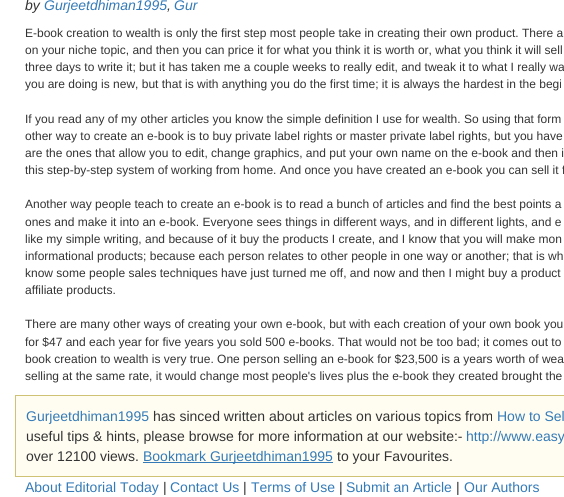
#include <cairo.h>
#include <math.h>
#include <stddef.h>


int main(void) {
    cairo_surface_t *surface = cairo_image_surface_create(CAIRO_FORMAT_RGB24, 564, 497);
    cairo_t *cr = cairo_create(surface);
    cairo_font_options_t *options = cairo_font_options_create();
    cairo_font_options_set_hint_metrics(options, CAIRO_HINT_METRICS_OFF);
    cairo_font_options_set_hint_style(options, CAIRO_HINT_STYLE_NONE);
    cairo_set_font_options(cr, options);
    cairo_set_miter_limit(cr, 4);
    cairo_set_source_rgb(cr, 1, 1, 1);
    cairo_paint(cr);
    cairo_select_font_face(cr, "Liberation Sans", CAIRO_FONT_SLANT_ITALIC, CAIRO_FONT_WEIGHT_NORMAL);
    cairo_set_font_size(cr, 14);
    cairo_set_source_rgb(cr, 0.2, 0.2, 0.2);
    cairo_move_to(cr, 25, 10);
    cairo_show_text(cr, "by");
    cairo_set_source_rgb(cr, 0.2, 0.478, 0.718);
    cairo_move_to(cr, 44, 10);
    cairo_show_text(cr, "Gurjeetdhiman1995");
    cairo_set_source_rgb(cr, 0.2, 0.2, 0.2);
    cairo_move_to(cr, 167, 10);
    cairo_show_text(cr, ",");
    cairo_set_source_rgb(cr, 0.2, 0.478, 0.718);
    cairo_move_to(cr, 174, 10);
    cairo_show_text(cr, "Gur");
    cairo_select_font_face(cr, "Liberation Sans", CAIRO_FONT_SLANT_NORMAL, CAIRO_FONT_WEIGHT_NORMAL);
    cairo_set_font_size(cr, 12);
    cairo_set_source_rgb(cr, 0.2, 0.2, 0.2);
    cairo_move_to(cr, 25, 37);
    cairo_show_text(cr, "E-book creation to wealth is only the first step most people take in creating their own product. There a");
    cairo_move_to(cr, 25, 54);
    cairo_show_text(cr, "on your niche topic, and then you can price it for what you think it is worth or, what you think it will sell");
    cairo_move_to(cr, 25, 71);
    cairo_show_text(cr, "three days to write it; but it has taken me a couple weeks to really edit, and tweak it to what I really wa");
    cairo_move_to(cr, 25, 88);
    cairo_show_text(cr, "you are doing is new, but that is with anything you do the first time; it is always the hardest in the begi");
    cairo_move_to(cr, 25, 123);
    cairo_show_text(cr, "If you read any of my other articles you know the simple definition I use for wealth. So using that form");
    cairo_move_to(cr, 25, 140);
    cairo_show_text(cr, "other way to create an e-book is to buy private label rights or master private label rights, but you have");
    cairo_move_to(cr, 25, 157);
    cairo_show_text(cr, "are the ones that allow you to edit, change graphics, and put your own name on the e-book and then i");
    cairo_move_to(cr, 25, 174);
    cairo_show_text(cr, "this step-by-step system of working from home. And once you have created an e-book you can sell it f");
    cairo_move_to(cr, 25, 208);
    cairo_show_text(cr, "Another way people teach to create an e-book is to read a bunch of articles and find the best points a");
    cairo_move_to(cr, 25, 226);
    cairo_show_text(cr, "ones and make it into an e-book. Everyone sees things in different ways, and in different lights, and e");
    cairo_move_to(cr, 25, 243);
    cairo_show_text(cr, "like my simple writing, and because of it buy the products I create, and I know that you will make mon");
    cairo_move_to(cr, 25, 260);
    cairo_show_text(cr, "informational products; because each person relates to other people in one way or another; that is wh");
    cairo_move_to(cr, 25, 277);
    cairo_show_text(cr, "know some people sales techniques have just turned me off, and now and then I might buy a product");
    cairo_move_to(cr, 25, 294);
    cairo_show_text(cr, "affiliate products.");
    cairo_move_to(cr, 25, 328);
    cairo_show_text(cr, "There are many other ways of creating your own e-book, but with each creation of your own book you");
    cairo_move_to(cr, 25, 346);
    cairo_show_text(cr, "for $47 and each year for five years you sold 500 e-books. That would not be too bad; it comes out to");
    cairo_move_to(cr, 25, 363);
    cairo_show_text(cr, "book creation to wealth is very true. One person selling an e-book for $23,500 is a years worth of wea");
    cairo_move_to(cr, 25, 380);
    cairo_show_text(cr, "selling at the same rate, it would change most people's lives plus the e-book they created brought the");
    cairo_set_source_rgb(cr, 1, 0.992, 0.949);
    cairo_rectangle(cr, 15.5, 395.5, 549, 81);
    cairo_fill_preserve(cr);
    cairo_set_source_rgb(cr, 0.816, 0.761, 0.459);
    cairo_set_line_width(cr, 1);
    cairo_stroke(cr);
    cairo_set_font_size(cr, 14);
    cairo_set_source_rgb(cr, 0.2, 0.478, 0.718);
    cairo_move_to(cr, 26, 421);
    cairo_show_text(cr, "Gurjeetdhiman1995");
    cairo_set_source_rgb(cr, 0.2, 0.2, 0.2);
    cairo_move_to(cr, 153, 421);
    cairo_show_text(cr, "has sinced written about articles on various topics from");
    cairo_set_source_rgb(cr, 0.2, 0.478, 0.718);
    cairo_move_to(cr, 497, 421);
    cairo_show_text(cr, "How to Sel");
    cairo_set_source_rgb(cr, 0.2, 0.2, 0.2);
    cairo_move_to(cr, 26, 441);
    cairo_show_text(cr, "useful tips & hints, please browse for more information at our website:-");
    cairo_set_source_rgb(cr, 0.2, 0.478, 0.718);
    cairo_move_to(cr, 466, 441);
    cairo_show_text(cr, "http://www.easy");
    cairo_set_source_rgb(cr, 0.2, 0.2, 0.2);
    cairo_move_to(cr, 26, 461);
    cairo_show_text(cr, "over 12100 views.");
    cairo_set_source_rgb(cr, 0.2, 0.478, 0.718);
    cairo_rectangle(cr, 143, 462, 190, 1);
    cairo_fill(cr);
    cairo_move_to(cr, 143, 461);
    cairo_show_text(cr, "Bookmark Gurjeetdhiman1995");
    cairo_set_source_rgb(cr, 0.2, 0.2, 0.2);
    cairo_move_to(cr, 337, 461);
    cairo_show_text(cr, "to your Favourites.");
    cairo_set_source_rgb(cr, 0.2, 0.478, 0.718);
    cairo_move_to(cr, 25, 492);
    cairo_show_text(cr, "About Editorial Today");
    cairo_set_source_rgb(cr, 0.2, 0.2, 0.2);
    cairo_move_to(cr, 163, 492);
    cairo_show_text(cr, "|");
    cairo_set_source_rgb(cr, 0.2, 0.478, 0.718);
    cairo_move_to(cr, 170, 492);
    cairo_show_text(cr, "Contact Us");
    cairo_set_source_rgb(cr, 0.2, 0.2, 0.2);
    cairo_move_to(cr, 243, 492);
    cairo_show_text(cr, "|");
    cairo_set_source_rgb(cr, 0.2, 0.478, 0.718);
    cairo_move_to(cr, 251, 492);
    cairo_show_text(cr, "Terms of Use");
    cairo_set_source_rgb(cr, 0.2, 0.2, 0.2);
    cairo_move_to(cr, 339, 492);
    cairo_show_text(cr, "|");
    cairo_set_source_rgb(cr, 0.2, 0.478, 0.718);
    cairo_move_to(cr, 346, 492);
    cairo_show_text(cr, "Submit an Article");
    cairo_set_source_rgb(cr, 0.2, 0.2, 0.2);
    cairo_move_to(cr, 456, 492);
    cairo_show_text(cr, "|");
    cairo_set_source_rgb(cr, 0.2, 0.478, 0.718);
    cairo_move_to(cr, 464, 492);
    cairo_show_text(cr, "Our Authors");
    cairo_surface_write_to_png(surface, "page.png");
    cairo_font_options_destroy(options);
    cairo_destroy(cr);
    cairo_surface_destroy(surface);
    return 0;
}
